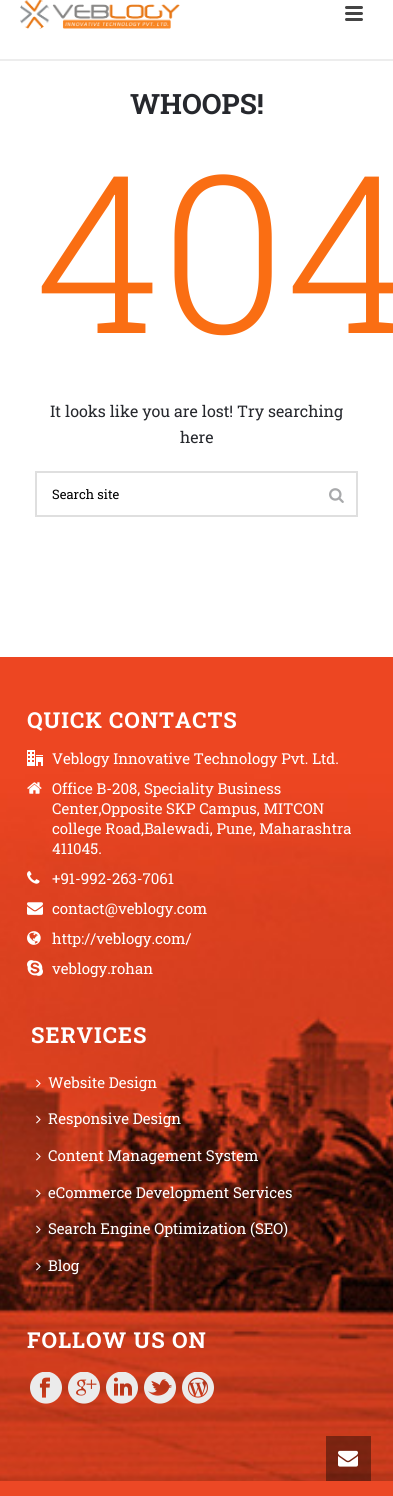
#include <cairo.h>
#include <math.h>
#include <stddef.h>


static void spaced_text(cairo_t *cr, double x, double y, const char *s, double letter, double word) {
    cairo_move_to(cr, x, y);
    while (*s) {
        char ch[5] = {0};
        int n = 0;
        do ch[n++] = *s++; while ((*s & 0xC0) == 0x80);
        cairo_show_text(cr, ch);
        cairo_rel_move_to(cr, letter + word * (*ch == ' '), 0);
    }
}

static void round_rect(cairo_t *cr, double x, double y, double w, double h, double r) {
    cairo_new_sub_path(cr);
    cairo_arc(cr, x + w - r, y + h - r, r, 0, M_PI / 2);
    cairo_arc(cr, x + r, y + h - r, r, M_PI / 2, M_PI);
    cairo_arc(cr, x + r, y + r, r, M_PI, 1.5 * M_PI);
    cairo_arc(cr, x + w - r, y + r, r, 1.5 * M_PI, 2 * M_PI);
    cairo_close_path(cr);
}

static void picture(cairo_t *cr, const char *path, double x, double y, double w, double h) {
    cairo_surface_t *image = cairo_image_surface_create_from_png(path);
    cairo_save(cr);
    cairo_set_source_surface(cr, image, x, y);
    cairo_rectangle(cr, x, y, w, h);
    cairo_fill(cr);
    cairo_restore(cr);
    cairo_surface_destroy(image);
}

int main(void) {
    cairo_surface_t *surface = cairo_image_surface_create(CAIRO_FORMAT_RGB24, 393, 1496);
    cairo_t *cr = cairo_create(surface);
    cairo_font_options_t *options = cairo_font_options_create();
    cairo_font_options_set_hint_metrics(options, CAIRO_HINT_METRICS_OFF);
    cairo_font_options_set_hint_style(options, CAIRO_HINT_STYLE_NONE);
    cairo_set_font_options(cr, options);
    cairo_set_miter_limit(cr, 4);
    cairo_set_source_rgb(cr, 1, 1, 1);
    cairo_paint(cr);
    cairo_set_source_rgb(cr, 0.929, 0.929, 0.929);
    cairo_rectangle(cr, 0, 59, 393, 2);
    cairo_fill(cr);
    picture(cr, "img1.png", 20, 0, 160, 29);
    cairo_set_source_rgb(cr, 0.267, 0.267, 0.267);
    round_rect(cr, 345, 6, 18, 3, 1.5);
    cairo_fill(cr);
    round_rect(cr, 345, 12, 18, 3, 1.5);
    cairo_fill(cr);
    round_rect(cr, 345, 18, 18, 3, 1.5);
    cairo_fill(cr);
    cairo_select_font_face(cr, "Roboto Slab", CAIRO_FONT_SLANT_NORMAL, CAIRO_FONT_WEIGHT_BOLD);
    cairo_set_font_size(cr, 28);
    cairo_set_source_rgb(cr, 0.149, 0.157, 0.176);
    cairo_move_to(cr, 130, 114);
    cairo_show_text(cr, "WHOOPS!");
    cairo_select_font_face(cr, "Roboto Slab Light", CAIRO_FONT_SLANT_NORMAL, CAIRO_FONT_WEIGHT_NORMAL);
    cairo_set_font_size(cr, 220);
    cairo_set_source_rgb(cr, 0.98, 0.431, 0.078);
    cairo_move_to(cr, 35, 333);
    cairo_show_text(cr, "404");
    cairo_select_font_face(cr, "Roboto Slab", CAIRO_FONT_SLANT_NORMAL, CAIRO_FONT_WEIGHT_NORMAL);
    cairo_set_font_size(cr, 16);
    cairo_set_source_rgb(cr, 0.149, 0.157, 0.176);
    cairo_move_to(cr, 50, 417);
    cairo_show_text(cr, "It looks like you are lost! Try searching");
    cairo_move_to(cr, 180, 443);
    cairo_show_text(cr, "here");
    cairo_rectangle(cr, 36, 472, 321, 44);
    cairo_set_source_rgb(cr, 0.875, 0.875, 0.875);
    cairo_stroke(cr);
    cairo_set_font_size(cr, 13);
    cairo_set_source_rgb(cr, 0, 0, 0);
    cairo_move_to(cr, 52, 499);
    cairo_show_text(cr, "Search site");
    picture(cr, "img2.png", 329, 488, 15, 15);
    picture(cr, "img3.png", 0, 657, 393, 824);
    cairo_select_font_face(cr, "Roboto Slab", CAIRO_FONT_SLANT_NORMAL, CAIRO_FONT_WEIGHT_BOLD);
    cairo_set_font_size(cr, 22);
    cairo_set_source_rgb(cr, 1, 1, 1);
    spaced_text(cr, 27, 728, "QUICK CONTACTS", 1, 0);
    picture(cr, "img4.png", 27, 750, 16, 16);
    cairo_select_font_face(cr, "Roboto Slab", CAIRO_FONT_SLANT_NORMAL, CAIRO_FONT_WEIGHT_NORMAL);
    cairo_set_font_size(cr, 15);
    cairo_move_to(cr, 52, 764);
    cairo_show_text(cr, "Veblogy Innovative Technology Pvt. Ltd.");
    picture(cr, "img5.png", 27, 782, 15, 12);
    cairo_move_to(cr, 52, 794);
    cairo_show_text(cr, "Office B-208, Speciality Business");
    cairo_move_to(cr, 52, 814);
    cairo_show_text(cr, "Center,Opposite SKP Campus, MITCON");
    cairo_move_to(cr, 52, 834);
    cairo_show_text(cr, "college Road,Balewadi, Pune, Maharashtra");
    cairo_move_to(cr, 52, 854);
    cairo_show_text(cr, "411045.");
    picture(cr, "img6.png", 27, 871, 13, 13);
    cairo_move_to(cr, 52, 884);
    cairo_show_text(cr, "+91-992-263-7061");
    picture(cr, "img7.png", 27, 902, 16, 13);
    cairo_move_to(cr, 52, 914);
    cairo_show_text(cr, "contact@veblogy.com");
    picture(cr, "img8.png", 27, 931, 14, 14);
    cairo_move_to(cr, 52, 944);
    cairo_show_text(cr, "http://veblogy.com/");
    picture(cr, "img9.png", 27, 960, 16, 16);
    cairo_move_to(cr, 52, 974);
    cairo_show_text(cr, "veblogy.rohan");
    cairo_select_font_face(cr, "Roboto Slab", CAIRO_FONT_SLANT_NORMAL, CAIRO_FONT_WEIGHT_BOLD);
    cairo_set_font_size(cr, 22);
    spaced_text(cr, 31, 1043, "SERVICES", 1, 0);
    picture(cr, "img10.png", 36, 1079, 5, 9);
    cairo_select_font_face(cr, "Roboto Slab", CAIRO_FONT_SLANT_NORMAL, CAIRO_FONT_WEIGHT_NORMAL);
    cairo_set_font_size(cr, 15);
    cairo_move_to(cr, 48, 1088);
    cairo_show_text(cr, "Website Design");
    picture(cr, "img11.png", 36, 1115, 5, 9);
    cairo_move_to(cr, 48, 1124);
    cairo_show_text(cr, "Responsive Design");
    picture(cr, "img12.png", 36, 1152, 5, 9);
    cairo_move_to(cr, 48, 1161);
    cairo_show_text(cr, "Content Management System");
    picture(cr, "img13.png", 36, 1189, 5, 9);
    cairo_move_to(cr, 48, 1198);
    cairo_show_text(cr, "eCommerce Development Services");
    picture(cr, "img14.png", 36, 1225, 5, 9);
    cairo_move_to(cr, 48, 1234);
    cairo_show_text(cr, "Search Engine Optimization (SEO)");
    picture(cr, "img15.png", 36, 1262, 5, 9);
    cairo_move_to(cr, 48, 1271);
    cairo_show_text(cr, "Blog");
    cairo_select_font_face(cr, "Roboto Slab", CAIRO_FONT_SLANT_NORMAL, CAIRO_FONT_WEIGHT_BOLD);
    cairo_set_font_size(cr, 22);
    spaced_text(cr, 27, 1348, "FOLLOW US ON", 1, 0);
    picture(cr, "img16.png", 30, 1372, 32, 32);
    picture(cr, "img17.png", 68, 1372, 32, 32);
    picture(cr, "img18.png", 106, 1372, 32, 32);
    picture(cr, "img19.png", 144, 1372, 32, 32);
    picture(cr, "img20.png", 182, 1372, 32, 32);
    cairo_set_source_rgb(cr, 0.925, 0.282, 0.145);
    cairo_rectangle(cr, 0, 1481, 393, 15);
    cairo_fill(cr);
    cairo_set_source_rgba(cr, 0, 0, 0, 0.4);
    cairo_rectangle(cr, 326, 1436, 45, 45);
    cairo_fill(cr);
    picture(cr, "img21.png", 338, 1450, 20, 17);
    cairo_surface_write_to_png(surface, "page.png");
    cairo_font_options_destroy(options);
    cairo_destroy(cr);
    cairo_surface_destroy(surface);
    return 0;
}
